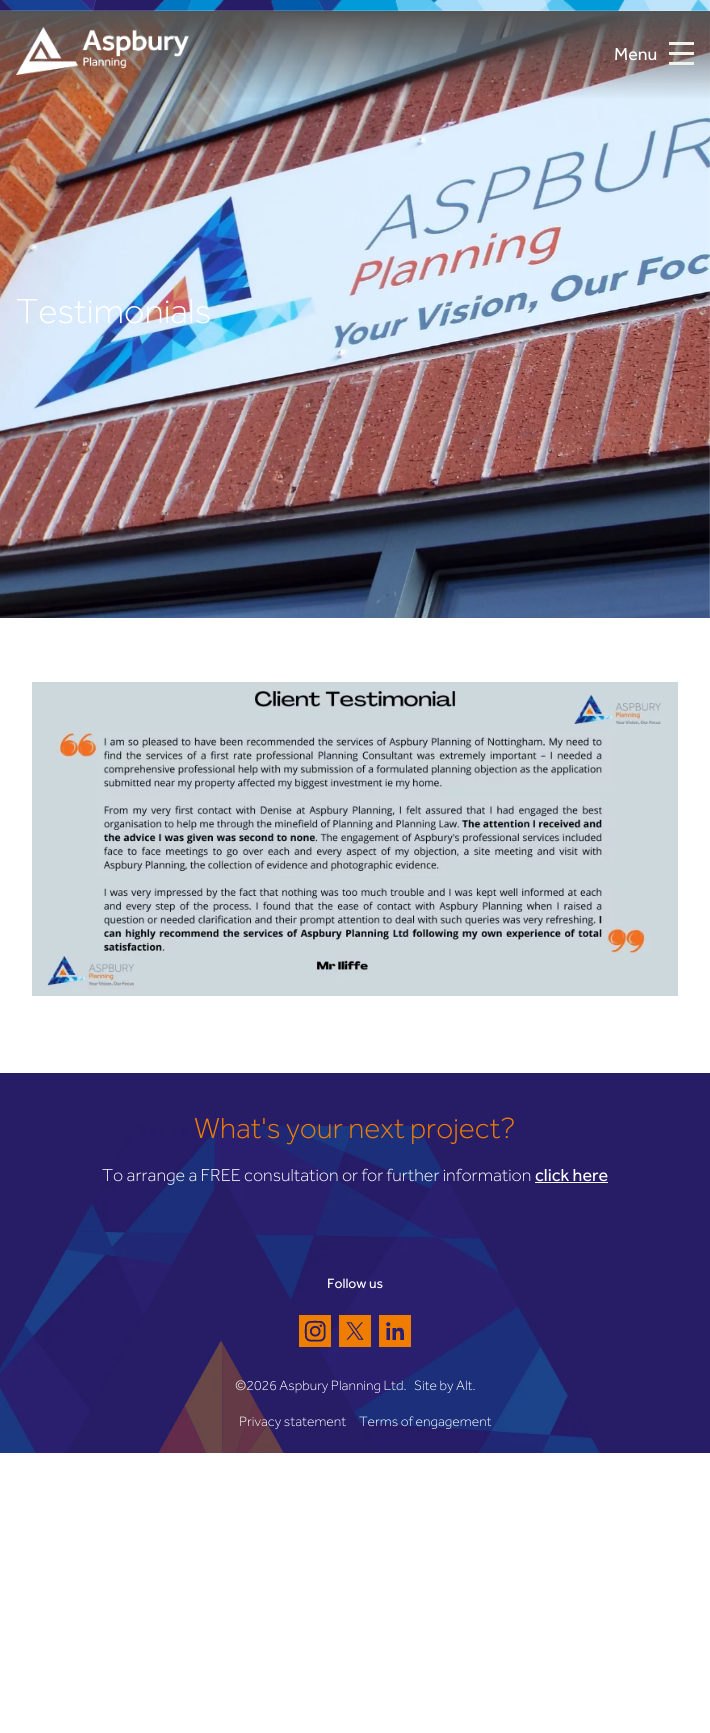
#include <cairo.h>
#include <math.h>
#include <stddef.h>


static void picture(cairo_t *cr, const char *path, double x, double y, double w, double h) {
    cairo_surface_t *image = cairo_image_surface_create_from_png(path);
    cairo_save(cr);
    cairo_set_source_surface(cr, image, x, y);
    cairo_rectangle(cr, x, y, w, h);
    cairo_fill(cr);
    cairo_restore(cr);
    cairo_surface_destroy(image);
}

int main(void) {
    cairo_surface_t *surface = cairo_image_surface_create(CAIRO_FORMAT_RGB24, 710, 1733);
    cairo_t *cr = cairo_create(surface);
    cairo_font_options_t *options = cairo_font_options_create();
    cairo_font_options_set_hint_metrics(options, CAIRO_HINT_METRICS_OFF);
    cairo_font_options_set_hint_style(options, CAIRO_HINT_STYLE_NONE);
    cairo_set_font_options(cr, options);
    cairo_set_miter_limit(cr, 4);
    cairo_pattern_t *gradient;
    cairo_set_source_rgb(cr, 1, 1, 1);
    cairo_paint(cr);
    picture(cr, "img1.png", 0, 0, 710, 11);
    picture(cr, "img3.png", 0, 12, 710, 606);
    gradient = cairo_pattern_create_linear(355, 11, 355, 100);
    cairo_pattern_add_color_stop_rgba(gradient, 0, 0.329, 0.329, 0.329, 1);
    cairo_pattern_add_color_stop_rgba(gradient, 0.92, 0.329, 0.329, 0.329, 0.08);
    cairo_pattern_add_color_stop_rgba(gradient, 1, 0.329, 0.329, 0.329, 0);
    cairo_set_source(cr, gradient);
    cairo_pattern_destroy(gradient);
    cairo_rectangle(cr, 0, 11, 710, 87);
    cairo_fill(cr);
    picture(cr, "img2.png", 16, 27, 173, 48);
    cairo_select_font_face(cr, "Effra", CAIRO_FONT_SLANT_NORMAL, CAIRO_FONT_WEIGHT_NORMAL);
    cairo_set_font_size(cr, 18);
    cairo_set_source_rgb(cr, 1, 1, 1);
    cairo_move_to(cr, 614, 60);
    cairo_show_text(cr, "Menu");
    cairo_set_source_rgb(cr, 0.949, 0.949, 0.914);
    cairo_rectangle(cr, 669, 42, 25, 3);
    cairo_fill(cr);
    cairo_rectangle(cr, 669, 52, 25, 3);
    cairo_fill(cr);
    cairo_rectangle(cr, 669, 62, 25, 3);
    cairo_fill(cr);
    cairo_select_font_face(cr, "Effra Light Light", CAIRO_FONT_SLANT_NORMAL, CAIRO_FONT_WEIGHT_NORMAL);
    cairo_set_font_size(cr, 36);
    cairo_set_source_rgb(cr, 1, 1, 1);
    cairo_move_to(cr, 16, 323);
    cairo_show_text(cr, "Testimonials");
    picture(cr, "img4.png", 32, 682, 646, 314);
    cairo_set_source_rgb(cr, 0.153, 0.114, 0.404);
    cairo_rectangle(cr, 0, 1073, 710, 380);
    cairo_fill(cr);
    picture(cr, "img5.png", 0, 1126, 600, 327);
    cairo_set_font_size(cr, 30);
    cairo_set_source_rgb(cr, 0.937, 0.49, 0);
    cairo_move_to(cr, 194, 1138);
    cairo_show_text(cr, "What's your next project?");
    cairo_set_font_size(cr, 18);
    cairo_set_source_rgb(cr, 1, 1, 1);
    cairo_move_to(cr, 102, 1181);
    cairo_show_text(cr, "To arrange a FREE consultation or for further information");
    cairo_select_font_face(cr, "Effra", CAIRO_FONT_SLANT_NORMAL, CAIRO_FONT_WEIGHT_NORMAL);
    cairo_move_to(cr, 535, 1181);
    cairo_show_text(cr, "click here");
    cairo_rectangle(cr, 535, 1182, 73, 1);
    cairo_fill(cr);
    cairo_set_font_size(cr, 14);
    cairo_move_to(cr, 327, 1288);
    cairo_show_text(cr, "Follow us");
    picture(cr, "img6.png", 299, 1315, 32, 32);
    picture(cr, "img7.png", 339, 1315, 32, 32);
    picture(cr, "img8.png", 379, 1315, 32, 32);
    cairo_select_font_face(cr, "Effra Light Light", CAIRO_FONT_SLANT_NORMAL, CAIRO_FONT_WEIGHT_NORMAL);
    cairo_move_to(cr, 235, 1390);
    cairo_show_text(cr, "©2026 Aspbury Planning Ltd.");
    cairo_move_to(cr, 414, 1390);
    cairo_show_text(cr, "Site by Alt.");
    cairo_move_to(cr, 239, 1426);
    cairo_show_text(cr, "Privacy statement");
    cairo_move_to(cr, 359, 1426);
    cairo_show_text(cr, "Terms of engagement");
    cairo_surface_write_to_png(surface, "page.png");
    cairo_font_options_destroy(options);
    cairo_destroy(cr);
    cairo_surface_destroy(surface);
    return 0;
}
